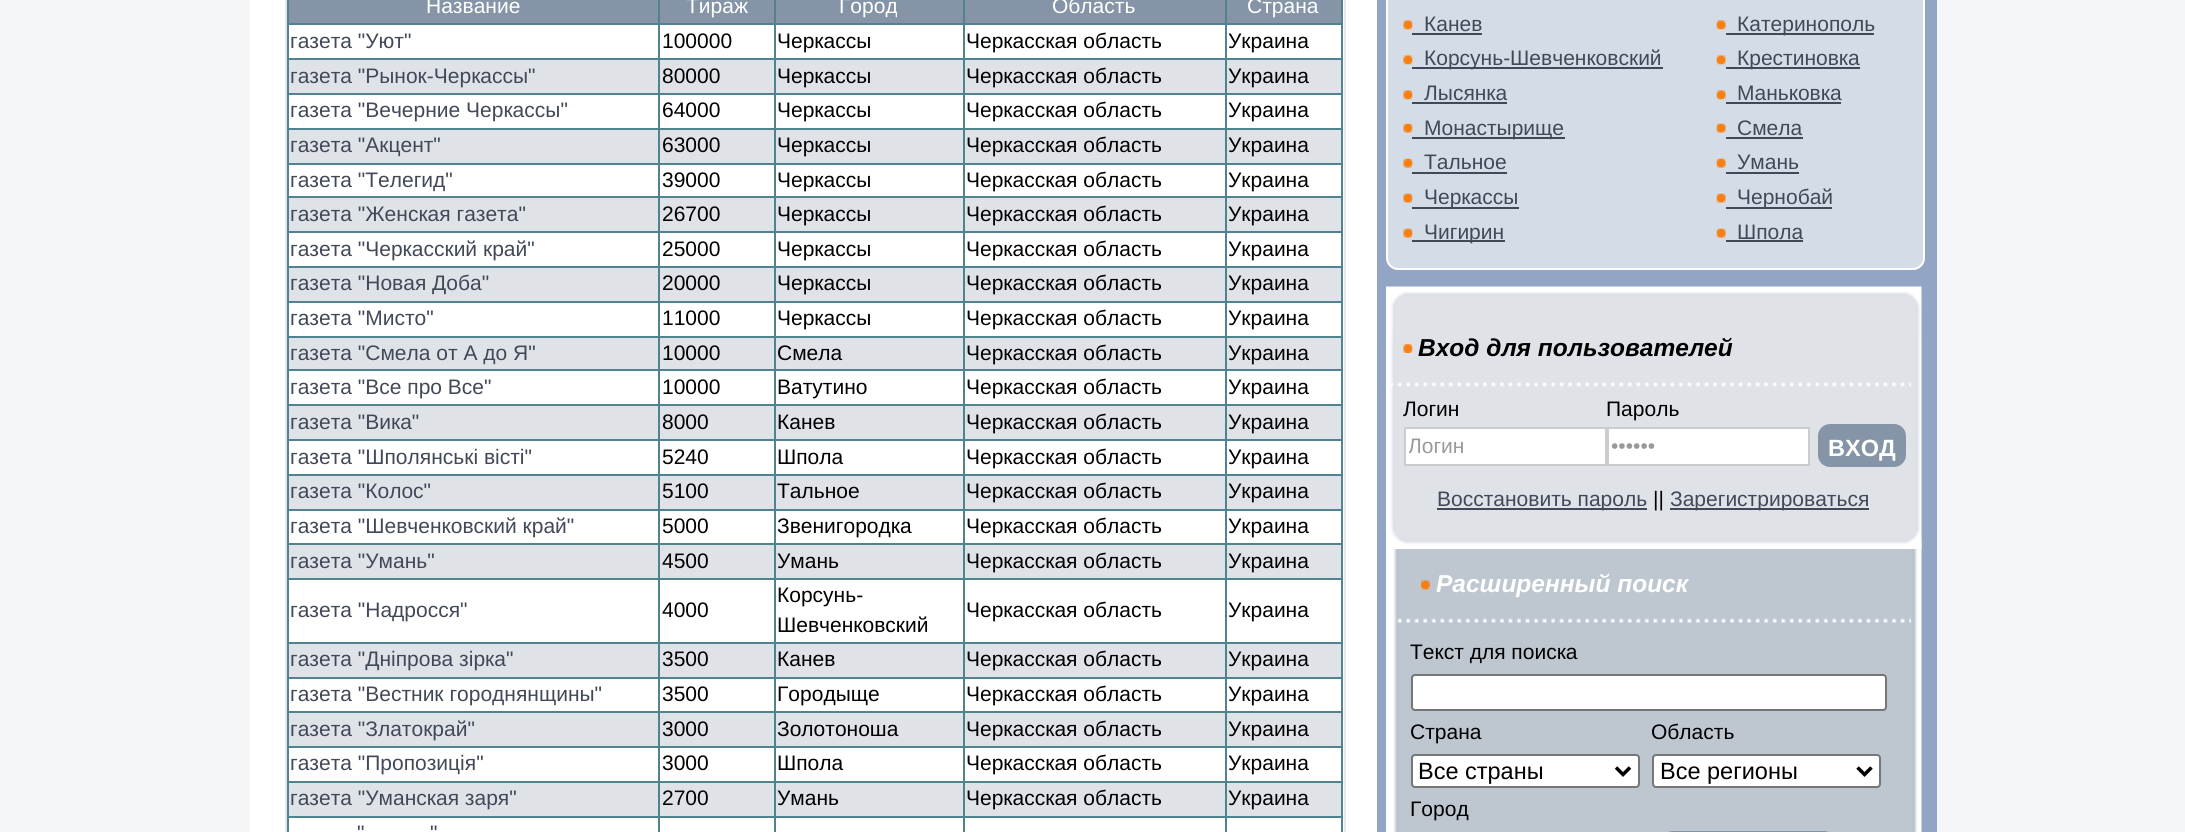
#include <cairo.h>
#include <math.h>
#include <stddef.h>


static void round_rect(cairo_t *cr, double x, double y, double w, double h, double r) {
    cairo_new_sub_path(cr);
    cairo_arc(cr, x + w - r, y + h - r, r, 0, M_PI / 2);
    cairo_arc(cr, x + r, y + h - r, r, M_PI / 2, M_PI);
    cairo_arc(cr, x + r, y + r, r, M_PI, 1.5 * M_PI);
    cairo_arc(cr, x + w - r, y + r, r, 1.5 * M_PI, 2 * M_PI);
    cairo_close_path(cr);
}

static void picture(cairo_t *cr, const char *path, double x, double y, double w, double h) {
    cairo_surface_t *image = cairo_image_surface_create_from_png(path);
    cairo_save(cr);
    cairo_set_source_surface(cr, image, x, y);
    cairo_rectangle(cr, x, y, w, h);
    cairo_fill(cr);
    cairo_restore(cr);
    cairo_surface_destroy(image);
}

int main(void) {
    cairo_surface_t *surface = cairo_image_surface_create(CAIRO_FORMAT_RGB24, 2185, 832);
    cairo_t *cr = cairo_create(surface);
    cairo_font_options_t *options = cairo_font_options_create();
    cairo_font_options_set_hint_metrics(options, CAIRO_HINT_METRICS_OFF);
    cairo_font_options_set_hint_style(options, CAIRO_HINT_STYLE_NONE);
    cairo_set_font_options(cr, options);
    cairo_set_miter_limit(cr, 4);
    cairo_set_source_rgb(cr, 0.957, 0.961, 0.969);
    cairo_paint(cr);
    cairo_set_source_rgb(cr, 1, 1, 1);
    cairo_rectangle(cr, 250, 0, 1127, 832);
    cairo_fill(cr);
    cairo_rectangle(cr, 286, -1, 1059, 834);
    cairo_set_source_rgb(cr, 0.898, 0.914, 0.925);
    cairo_stroke(cr);
    cairo_set_source_rgb(cr, 0.314, 0.514, 0.561);
    cairo_rectangle(cr, 1341, 0, 2, 832);
    cairo_fill(cr);
    cairo_rectangle(cr, 287, 0, 2, 832);
    cairo_fill(cr);
    cairo_set_source_rgb(cr, 0.522, 0.584, 0.655);
    cairo_rectangle(cr, 289, 0, 1052, 23);
    cairo_fill(cr);
    cairo_select_font_face(cr, "Liberation Sans", CAIRO_FONT_SLANT_NORMAL, CAIRO_FONT_WEIGHT_NORMAL);
    cairo_set_font_size(cr, 21);
    cairo_set_source_rgb(cr, 1, 1, 1);
    cairo_move_to(cr, 426, 13);
    cairo_show_text(cr, "Название");
    cairo_set_source_rgb(cr, 0.314, 0.514, 0.561);
    cairo_rectangle(cr, 1225, 23, 117, 2);
    cairo_fill(cr);
    cairo_rectangle(cr, 1225, 58, 117, 2);
    cairo_fill(cr);
    cairo_set_source_rgb(cr, 0.875, 0.89, 0.91);
    cairo_rectangle(cr, 289, 60, 1052, 33);
    cairo_fill(cr);
    cairo_set_source_rgb(cr, 0.314, 0.514, 0.561);
    cairo_rectangle(cr, 1225, 93, 117, 2);
    cairo_fill(cr);
    cairo_rectangle(cr, 1225, 128, 117, 2);
    cairo_fill(cr);
    cairo_set_source_rgb(cr, 0.875, 0.89, 0.91);
    cairo_rectangle(cr, 289, 130, 1052, 33);
    cairo_fill(cr);
    cairo_set_source_rgb(cr, 0.314, 0.514, 0.561);
    cairo_rectangle(cr, 1225, 163, 117, 2);
    cairo_fill(cr);
    cairo_rectangle(cr, 1225, 196, 117, 2);
    cairo_fill(cr);
    cairo_set_source_rgb(cr, 0.875, 0.89, 0.91);
    cairo_rectangle(cr, 289, 198, 1052, 33);
    cairo_fill(cr);
    cairo_set_source_rgb(cr, 0.314, 0.514, 0.561);
    cairo_rectangle(cr, 1225, 231, 117, 2);
    cairo_fill(cr);
    cairo_rectangle(cr, 1225, 266, 117, 2);
    cairo_fill(cr);
    cairo_set_source_rgb(cr, 0.875, 0.89, 0.91);
    cairo_rectangle(cr, 289, 268, 1052, 33);
    cairo_fill(cr);
    cairo_set_source_rgb(cr, 0.314, 0.514, 0.561);
    cairo_rectangle(cr, 1225, 301, 117, 2);
    cairo_fill(cr);
    cairo_rectangle(cr, 1225, 336, 117, 2);
    cairo_fill(cr);
    cairo_set_source_rgb(cr, 0.875, 0.89, 0.91);
    cairo_rectangle(cr, 289, 338, 1052, 31);
    cairo_fill(cr);
    cairo_set_source_rgb(cr, 0.314, 0.514, 0.561);
    cairo_rectangle(cr, 1225, 369, 117, 2);
    cairo_fill(cr);
    cairo_rectangle(cr, 1225, 404, 117, 2);
    cairo_fill(cr);
    cairo_set_source_rgb(cr, 0.875, 0.89, 0.91);
    cairo_rectangle(cr, 289, 406, 1052, 33);
    cairo_fill(cr);
    cairo_set_source_rgb(cr, 0.314, 0.514, 0.561);
    cairo_rectangle(cr, 1225, 439, 117, 2);
    cairo_fill(cr);
    cairo_rectangle(cr, 1225, 474, 117, 2);
    cairo_fill(cr);
    cairo_set_source_rgb(cr, 0.875, 0.89, 0.91);
    cairo_rectangle(cr, 289, 476, 1052, 33);
    cairo_fill(cr);
    cairo_set_source_rgb(cr, 0.314, 0.514, 0.561);
    cairo_rectangle(cr, 1225, 509, 117, 2);
    cairo_fill(cr);
    cairo_rectangle(cr, 1225, 543, 117, 2);
    cairo_fill(cr);
    cairo_set_source_rgb(cr, 0.875, 0.89, 0.91);
    cairo_rectangle(cr, 289, 545, 1052, 33);
    cairo_fill(cr);
    cairo_set_source_rgb(cr, 0.314, 0.514, 0.561);
    cairo_rectangle(cr, 1225, 578, 117, 2);
    cairo_fill(cr);
    cairo_rectangle(cr, 1225, 642, 117, 2);
    cairo_fill(cr);
    cairo_set_source_rgb(cr, 0.875, 0.89, 0.91);
    cairo_rectangle(cr, 289, 644, 1052, 33);
    cairo_fill(cr);
    cairo_set_source_rgb(cr, 0.314, 0.514, 0.561);
    cairo_rectangle(cr, 1225, 677, 117, 2);
    cairo_fill(cr);
    cairo_rectangle(cr, 1225, 711, 117, 2);
    cairo_fill(cr);
    cairo_set_source_rgb(cr, 0.875, 0.89, 0.91);
    cairo_rectangle(cr, 289, 713, 1052, 33);
    cairo_fill(cr);
    cairo_set_source_rgb(cr, 0.314, 0.514, 0.561);
    cairo_rectangle(cr, 1225, 746, 117, 2);
    cairo_fill(cr);
    cairo_rectangle(cr, 1225, 781, 117, 2);
    cairo_fill(cr);
    cairo_set_source_rgb(cr, 0.875, 0.89, 0.91);
    cairo_rectangle(cr, 289, 783, 1052, 33);
    cairo_fill(cr);
    cairo_set_source_rgb(cr, 0.314, 0.514, 0.561);
    cairo_rectangle(cr, 1225, 816, 117, 2);
    cairo_fill(cr);
    cairo_rectangle(cr, 1225, 816, 2, 16);
    cairo_fill(cr);
    cairo_rectangle(cr, 963, 816, 264, 2);
    cairo_fill(cr);
    cairo_rectangle(cr, 1225, 781, 2, 36);
    cairo_fill(cr);
    cairo_rectangle(cr, 963, 781, 264, 2);
    cairo_fill(cr);
    cairo_rectangle(cr, 1225, 746, 2, 36);
    cairo_fill(cr);
    cairo_rectangle(cr, 963, 746, 264, 2);
    cairo_fill(cr);
    cairo_rectangle(cr, 1225, 711, 2, 36);
    cairo_fill(cr);
    cairo_rectangle(cr, 963, 711, 264, 2);
    cairo_fill(cr);
    cairo_rectangle(cr, 1225, 677, 2, 35);
    cairo_fill(cr);
    cairo_rectangle(cr, 963, 677, 264, 2);
    cairo_fill(cr);
    cairo_rectangle(cr, 1225, 642, 2, 37);
    cairo_fill(cr);
    cairo_rectangle(cr, 963, 642, 264, 2);
    cairo_fill(cr);
    cairo_rectangle(cr, 1225, 578, 2, 66);
    cairo_fill(cr);
    cairo_rectangle(cr, 963, 578, 264, 2);
    cairo_fill(cr);
    cairo_rectangle(cr, 1225, 543, 2, 36);
    cairo_fill(cr);
    cairo_rectangle(cr, 963, 543, 264, 2);
    cairo_fill(cr);
    cairo_rectangle(cr, 1225, 509, 2, 35);
    cairo_fill(cr);
    cairo_rectangle(cr, 963, 509, 264, 2);
    cairo_fill(cr);
    cairo_rectangle(cr, 1225, 474, 2, 37);
    cairo_fill(cr);
    cairo_rectangle(cr, 963, 474, 264, 2);
    cairo_fill(cr);
    cairo_rectangle(cr, 1225, 439, 2, 37);
    cairo_fill(cr);
    cairo_rectangle(cr, 963, 439, 264, 2);
    cairo_fill(cr);
    cairo_rectangle(cr, 1225, 404, 2, 37);
    cairo_fill(cr);
    cairo_rectangle(cr, 963, 404, 264, 2);
    cairo_fill(cr);
    cairo_rectangle(cr, 1225, 369, 2, 37);
    cairo_fill(cr);
    cairo_rectangle(cr, 963, 369, 264, 2);
    cairo_fill(cr);
    cairo_rectangle(cr, 1225, 336, 2, 35);
    cairo_fill(cr);
    cairo_rectangle(cr, 963, 336, 264, 2);
    cairo_fill(cr);
    cairo_rectangle(cr, 1225, 301, 2, 37);
    cairo_fill(cr);
    cairo_rectangle(cr, 963, 301, 264, 2);
    cairo_fill(cr);
    cairo_rectangle(cr, 1225, 266, 2, 37);
    cairo_fill(cr);
    cairo_rectangle(cr, 963, 266, 264, 2);
    cairo_fill(cr);
    cairo_rectangle(cr, 1225, 231, 2, 37);
    cairo_fill(cr);
    cairo_rectangle(cr, 963, 231, 264, 2);
    cairo_fill(cr);
    cairo_rectangle(cr, 1225, 196, 2, 37);
    cairo_fill(cr);
    cairo_rectangle(cr, 963, 196, 264, 2);
    cairo_fill(cr);
    cairo_rectangle(cr, 1225, 163, 2, 35);
    cairo_fill(cr);
    cairo_rectangle(cr, 963, 163, 264, 2);
    cairo_fill(cr);
    cairo_rectangle(cr, 1225, 128, 2, 37);
    cairo_fill(cr);
    cairo_rectangle(cr, 963, 128, 264, 2);
    cairo_fill(cr);
    cairo_rectangle(cr, 1225, 93, 2, 37);
    cairo_fill(cr);
    cairo_rectangle(cr, 963, 93, 264, 2);
    cairo_fill(cr);
    cairo_rectangle(cr, 1225, 58, 2, 37);
    cairo_fill(cr);
    cairo_rectangle(cr, 963, 58, 264, 2);
    cairo_fill(cr);
    cairo_rectangle(cr, 1225, 23, 2, 37);
    cairo_fill(cr);
    cairo_rectangle(cr, 963, 23, 264, 2);
    cairo_fill(cr);
    cairo_rectangle(cr, 963, 816, 2, 16);
    cairo_fill(cr);
    cairo_rectangle(cr, 774, 816, 190, 2);
    cairo_fill(cr);
    cairo_rectangle(cr, 963, 781, 2, 36);
    cairo_fill(cr);
    cairo_rectangle(cr, 774, 781, 190, 2);
    cairo_fill(cr);
    cairo_rectangle(cr, 963, 746, 2, 36);
    cairo_fill(cr);
    cairo_rectangle(cr, 774, 746, 190, 2);
    cairo_fill(cr);
    cairo_rectangle(cr, 963, 711, 2, 36);
    cairo_fill(cr);
    cairo_rectangle(cr, 774, 711, 190, 2);
    cairo_fill(cr);
    cairo_rectangle(cr, 963, 677, 2, 35);
    cairo_fill(cr);
    cairo_rectangle(cr, 774, 677, 190, 2);
    cairo_fill(cr);
    cairo_rectangle(cr, 963, 642, 2, 37);
    cairo_fill(cr);
    cairo_rectangle(cr, 774, 642, 190, 2);
    cairo_fill(cr);
    cairo_rectangle(cr, 963, 578, 2, 66);
    cairo_fill(cr);
    cairo_rectangle(cr, 774, 578, 190, 2);
    cairo_fill(cr);
    cairo_rectangle(cr, 963, 543, 2, 36);
    cairo_fill(cr);
    cairo_rectangle(cr, 774, 543, 190, 2);
    cairo_fill(cr);
    cairo_rectangle(cr, 963, 509, 2, 35);
    cairo_fill(cr);
    cairo_rectangle(cr, 774, 509, 190, 2);
    cairo_fill(cr);
    cairo_rectangle(cr, 963, 474, 2, 37);
    cairo_fill(cr);
    cairo_rectangle(cr, 774, 474, 190, 2);
    cairo_fill(cr);
    cairo_rectangle(cr, 963, 439, 2, 37);
    cairo_fill(cr);
    cairo_rectangle(cr, 774, 439, 190, 2);
    cairo_fill(cr);
    cairo_rectangle(cr, 963, 404, 2, 37);
    cairo_fill(cr);
    cairo_rectangle(cr, 774, 404, 190, 2);
    cairo_fill(cr);
    cairo_rectangle(cr, 963, 369, 2, 37);
    cairo_fill(cr);
    cairo_rectangle(cr, 774, 369, 190, 2);
    cairo_fill(cr);
    cairo_rectangle(cr, 963, 336, 2, 35);
    cairo_fill(cr);
    cairo_rectangle(cr, 774, 336, 190, 2);
    cairo_fill(cr);
    cairo_rectangle(cr, 963, 301, 2, 37);
    cairo_fill(cr);
    cairo_rectangle(cr, 774, 301, 190, 2);
    cairo_fill(cr);
    cairo_rectangle(cr, 963, 266, 2, 37);
    cairo_fill(cr);
    cairo_rectangle(cr, 774, 266, 190, 2);
    cairo_fill(cr);
    cairo_rectangle(cr, 963, 231, 2, 37);
    cairo_fill(cr);
    cairo_rectangle(cr, 774, 231, 190, 2);
    cairo_fill(cr);
    cairo_rectangle(cr, 963, 196, 2, 37);
    cairo_fill(cr);
    cairo_rectangle(cr, 774, 196, 190, 2);
    cairo_fill(cr);
    cairo_rectangle(cr, 963, 163, 2, 35);
    cairo_fill(cr);
    cairo_rectangle(cr, 774, 163, 190, 2);
    cairo_fill(cr);
    cairo_rectangle(cr, 963, 128, 2, 37);
    cairo_fill(cr);
    cairo_rectangle(cr, 774, 128, 190, 2);
    cairo_fill(cr);
    cairo_rectangle(cr, 963, 93, 2, 37);
    cairo_fill(cr);
    cairo_rectangle(cr, 774, 93, 190, 2);
    cairo_fill(cr);
    cairo_rectangle(cr, 963, 58, 2, 37);
    cairo_fill(cr);
    cairo_rectangle(cr, 774, 58, 190, 2);
    cairo_fill(cr);
    cairo_rectangle(cr, 963, 23, 2, 37);
    cairo_fill(cr);
    cairo_rectangle(cr, 774, 23, 190, 2);
    cairo_fill(cr);
    cairo_rectangle(cr, 774, 816, 2, 16);
    cairo_fill(cr);
    cairo_rectangle(cr, 658, 816, 117, 2);
    cairo_fill(cr);
    cairo_rectangle(cr, 774, 781, 2, 36);
    cairo_fill(cr);
    cairo_rectangle(cr, 658, 781, 117, 2);
    cairo_fill(cr);
    cairo_rectangle(cr, 774, 746, 2, 36);
    cairo_fill(cr);
    cairo_rectangle(cr, 658, 746, 117, 2);
    cairo_fill(cr);
    cairo_rectangle(cr, 774, 711, 2, 36);
    cairo_fill(cr);
    cairo_rectangle(cr, 658, 711, 117, 2);
    cairo_fill(cr);
    cairo_rectangle(cr, 774, 677, 2, 35);
    cairo_fill(cr);
    cairo_rectangle(cr, 658, 677, 117, 2);
    cairo_fill(cr);
    cairo_rectangle(cr, 774, 642, 2, 37);
    cairo_fill(cr);
    cairo_rectangle(cr, 658, 642, 117, 2);
    cairo_fill(cr);
    cairo_rectangle(cr, 774, 578, 2, 66);
    cairo_fill(cr);
    cairo_rectangle(cr, 658, 578, 117, 2);
    cairo_fill(cr);
    cairo_rectangle(cr, 774, 543, 2, 36);
    cairo_fill(cr);
    cairo_rectangle(cr, 658, 543, 117, 2);
    cairo_fill(cr);
    cairo_rectangle(cr, 774, 509, 2, 35);
    cairo_fill(cr);
    cairo_rectangle(cr, 658, 509, 117, 2);
    cairo_fill(cr);
    cairo_rectangle(cr, 774, 474, 2, 37);
    cairo_fill(cr);
    cairo_rectangle(cr, 658, 474, 117, 2);
    cairo_fill(cr);
    cairo_rectangle(cr, 774, 439, 2, 37);
    cairo_fill(cr);
    cairo_rectangle(cr, 658, 439, 117, 2);
    cairo_fill(cr);
    cairo_rectangle(cr, 774, 404, 2, 37);
    cairo_fill(cr);
    cairo_rectangle(cr, 658, 404, 117, 2);
    cairo_fill(cr);
    cairo_rectangle(cr, 774, 369, 2, 37);
    cairo_fill(cr);
    cairo_rectangle(cr, 658, 369, 117, 2);
    cairo_fill(cr);
    cairo_rectangle(cr, 774, 336, 2, 35);
    cairo_fill(cr);
    cairo_rectangle(cr, 658, 336, 117, 2);
    cairo_fill(cr);
    cairo_rectangle(cr, 774, 301, 2, 37);
    cairo_fill(cr);
    cairo_rectangle(cr, 658, 301, 117, 2);
    cairo_fill(cr);
    cairo_rectangle(cr, 774, 266, 2, 37);
    cairo_fill(cr);
    cairo_rectangle(cr, 658, 266, 117, 2);
    cairo_fill(cr);
    cairo_rectangle(cr, 774, 231, 2, 37);
    cairo_fill(cr);
    cairo_rectangle(cr, 658, 231, 117, 2);
    cairo_fill(cr);
    cairo_rectangle(cr, 774, 196, 2, 37);
    cairo_fill(cr);
    cairo_rectangle(cr, 658, 196, 117, 2);
    cairo_fill(cr);
    cairo_rectangle(cr, 774, 163, 2, 35);
    cairo_fill(cr);
    cairo_rectangle(cr, 658, 163, 117, 2);
    cairo_fill(cr);
    cairo_rectangle(cr, 774, 128, 2, 37);
    cairo_fill(cr);
    cairo_rectangle(cr, 658, 128, 117, 2);
    cairo_fill(cr);
    cairo_rectangle(cr, 774, 93, 2, 37);
    cairo_fill(cr);
    cairo_rectangle(cr, 658, 93, 117, 2);
    cairo_fill(cr);
    cairo_rectangle(cr, 774, 58, 2, 37);
    cairo_fill(cr);
    cairo_rectangle(cr, 658, 58, 117, 2);
    cairo_fill(cr);
    cairo_rectangle(cr, 774, 23, 2, 37);
    cairo_fill(cr);
    cairo_rectangle(cr, 658, 23, 117, 2);
    cairo_fill(cr);
    cairo_rectangle(cr, 658, 816, 2, 16);
    cairo_fill(cr);
    cairo_rectangle(cr, 287, 816, 373, 2);
    cairo_fill(cr);
    cairo_rectangle(cr, 658, 781, 2, 36);
    cairo_fill(cr);
    cairo_rectangle(cr, 287, 781, 373, 2);
    cairo_fill(cr);
    cairo_rectangle(cr, 658, 746, 2, 36);
    cairo_fill(cr);
    cairo_rectangle(cr, 287, 746, 373, 2);
    cairo_fill(cr);
    cairo_rectangle(cr, 658, 711, 2, 36);
    cairo_fill(cr);
    cairo_rectangle(cr, 287, 711, 373, 2);
    cairo_fill(cr);
    cairo_rectangle(cr, 658, 677, 2, 35);
    cairo_fill(cr);
    cairo_rectangle(cr, 287, 677, 373, 2);
    cairo_fill(cr);
    cairo_rectangle(cr, 658, 642, 2, 37);
    cairo_fill(cr);
    cairo_rectangle(cr, 287, 642, 373, 2);
    cairo_fill(cr);
    cairo_rectangle(cr, 658, 578, 2, 66);
    cairo_fill(cr);
    cairo_rectangle(cr, 287, 578, 373, 2);
    cairo_fill(cr);
    cairo_rectangle(cr, 658, 543, 2, 36);
    cairo_fill(cr);
    cairo_rectangle(cr, 287, 543, 373, 2);
    cairo_fill(cr);
    cairo_rectangle(cr, 658, 509, 2, 35);
    cairo_fill(cr);
    cairo_rectangle(cr, 287, 509, 373, 2);
    cairo_fill(cr);
    cairo_rectangle(cr, 658, 474, 2, 37);
    cairo_fill(cr);
    cairo_rectangle(cr, 287, 474, 373, 2);
    cairo_fill(cr);
    cairo_rectangle(cr, 658, 439, 2, 37);
    cairo_fill(cr);
    cairo_rectangle(cr, 287, 439, 373, 2);
    cairo_fill(cr);
    cairo_rectangle(cr, 658, 404, 2, 37);
    cairo_fill(cr);
    cairo_rectangle(cr, 287, 404, 373, 2);
    cairo_fill(cr);
    cairo_rectangle(cr, 658, 369, 2, 37);
    cairo_fill(cr);
    cairo_rectangle(cr, 287, 369, 373, 2);
    cairo_fill(cr);
    cairo_rectangle(cr, 658, 336, 2, 35);
    cairo_fill(cr);
    cairo_rectangle(cr, 287, 336, 373, 2);
    cairo_fill(cr);
    cairo_rectangle(cr, 658, 301, 2, 37);
    cairo_fill(cr);
    cairo_rectangle(cr, 287, 301, 373, 2);
    cairo_fill(cr);
    cairo_rectangle(cr, 658, 266, 2, 37);
    cairo_fill(cr);
    cairo_rectangle(cr, 287, 266, 373, 2);
    cairo_fill(cr);
    cairo_rectangle(cr, 658, 231, 2, 37);
    cairo_fill(cr);
    cairo_rectangle(cr, 287, 231, 373, 2);
    cairo_fill(cr);
    cairo_rectangle(cr, 658, 196, 2, 37);
    cairo_fill(cr);
    cairo_rectangle(cr, 287, 196, 373, 2);
    cairo_fill(cr);
    cairo_rectangle(cr, 658, 163, 2, 35);
    cairo_fill(cr);
    cairo_rectangle(cr, 287, 163, 373, 2);
    cairo_fill(cr);
    cairo_rectangle(cr, 658, 128, 2, 37);
    cairo_fill(cr);
    cairo_rectangle(cr, 287, 128, 373, 2);
    cairo_fill(cr);
    cairo_rectangle(cr, 658, 93, 2, 37);
    cairo_fill(cr);
    cairo_rectangle(cr, 287, 93, 373, 2);
    cairo_fill(cr);
    cairo_rectangle(cr, 658, 58, 2, 37);
    cairo_fill(cr);
    cairo_rectangle(cr, 287, 58, 373, 2);
    cairo_fill(cr);
    cairo_rectangle(cr, 658, 23, 2, 37);
    cairo_fill(cr);
    cairo_rectangle(cr, 287, 23, 373, 2);
    cairo_fill(cr);
    cairo_rectangle(cr, 658, 0, 2, 25);
    cairo_fill(cr);
    cairo_set_source_rgb(cr, 1, 1, 1);
    cairo_move_to(cr, 686, 13);
    cairo_show_text(cr, "Тираж");
    cairo_set_source_rgb(cr, 0.314, 0.514, 0.561);
    cairo_rectangle(cr, 774, 0, 2, 25);
    cairo_fill(cr);
    cairo_set_source_rgb(cr, 1, 1, 1);
    cairo_move_to(cr, 839, 13);
    cairo_show_text(cr, "Город");
    cairo_set_source_rgb(cr, 0.314, 0.514, 0.561);
    cairo_rectangle(cr, 963, 0, 2, 25);
    cairo_fill(cr);
    cairo_set_source_rgb(cr, 1, 1, 1);
    cairo_move_to(cr, 1052, 13);
    cairo_show_text(cr, "Область");
    cairo_set_source_rgb(cr, 0.314, 0.514, 0.561);
    cairo_rectangle(cr, 1225, 0, 2, 25);
    cairo_fill(cr);
    cairo_set_source_rgb(cr, 1, 1, 1);
    cairo_move_to(cr, 1247, 13);
    cairo_show_text(cr, "Страна");
    cairo_set_source_rgb(cr, 0.255, 0.286, 0.345);
    cairo_move_to(cr, 290, 48);
    cairo_show_text(cr, "газета \"Уют\"");
    cairo_set_source_rgb(cr, 0, 0, 0);
    cairo_move_to(cr, 662, 48);
    cairo_show_text(cr, "100000");
    cairo_move_to(cr, 777, 48);
    cairo_show_text(cr, "Черкассы");
    cairo_move_to(cr, 966, 48);
    cairo_show_text(cr, "Черкасская область");
    cairo_move_to(cr, 1228, 48);
    cairo_show_text(cr, "Украина");
    cairo_set_source_rgb(cr, 0.255, 0.286, 0.345);
    cairo_move_to(cr, 290, 83);
    cairo_show_text(cr, "газета \"Рынок-Черкассы\"");
    cairo_set_source_rgb(cr, 0, 0, 0);
    cairo_move_to(cr, 662, 83);
    cairo_show_text(cr, "80000");
    cairo_move_to(cr, 777, 83);
    cairo_show_text(cr, "Черкассы");
    cairo_move_to(cr, 966, 83);
    cairo_show_text(cr, "Черкасская область");
    cairo_move_to(cr, 1228, 83);
    cairo_show_text(cr, "Украина");
    cairo_set_source_rgb(cr, 0.255, 0.286, 0.345);
    cairo_move_to(cr, 290, 117);
    cairo_show_text(cr, "газета \"Вечерние Черкассы\"");
    cairo_set_source_rgb(cr, 0, 0, 0);
    cairo_move_to(cr, 662, 117);
    cairo_show_text(cr, "64000");
    cairo_move_to(cr, 777, 117);
    cairo_show_text(cr, "Черкассы");
    cairo_move_to(cr, 966, 117);
    cairo_show_text(cr, "Черкасская область");
    cairo_move_to(cr, 1228, 117);
    cairo_show_text(cr, "Украина");
    cairo_set_source_rgb(cr, 0.255, 0.286, 0.345);
    cairo_move_to(cr, 290, 152);
    cairo_show_text(cr, "газета \"Акцент\"");
    cairo_set_source_rgb(cr, 0, 0, 0);
    cairo_move_to(cr, 662, 152);
    cairo_show_text(cr, "63000");
    cairo_move_to(cr, 777, 152);
    cairo_show_text(cr, "Черкассы");
    cairo_move_to(cr, 966, 152);
    cairo_show_text(cr, "Черкасская область");
    cairo_move_to(cr, 1228, 152);
    cairo_show_text(cr, "Украина");
    cairo_set_source_rgb(cr, 0.255, 0.286, 0.345);
    cairo_move_to(cr, 290, 187);
    cairo_show_text(cr, "газета \"Телегид\"");
    cairo_set_source_rgb(cr, 0, 0, 0);
    cairo_move_to(cr, 662, 187);
    cairo_show_text(cr, "39000");
    cairo_move_to(cr, 777, 187);
    cairo_show_text(cr, "Черкассы");
    cairo_move_to(cr, 966, 187);
    cairo_show_text(cr, "Черкасская область");
    cairo_move_to(cr, 1228, 187);
    cairo_show_text(cr, "Украина");
    cairo_set_source_rgb(cr, 0.255, 0.286, 0.345);
    cairo_move_to(cr, 290, 221);
    cairo_show_text(cr, "газета \"Женская газета\"");
    cairo_set_source_rgb(cr, 0, 0, 0);
    cairo_move_to(cr, 662, 221);
    cairo_show_text(cr, "26700");
    cairo_move_to(cr, 777, 221);
    cairo_show_text(cr, "Черкассы");
    cairo_move_to(cr, 966, 221);
    cairo_show_text(cr, "Черкасская область");
    cairo_move_to(cr, 1228, 221);
    cairo_show_text(cr, "Украина");
    cairo_set_source_rgb(cr, 0.255, 0.286, 0.345);
    cairo_move_to(cr, 290, 256);
    cairo_show_text(cr, "газета \"Черкасский край\"");
    cairo_set_source_rgb(cr, 0, 0, 0);
    cairo_move_to(cr, 662, 256);
    cairo_show_text(cr, "25000");
    cairo_move_to(cr, 777, 256);
    cairo_show_text(cr, "Черкассы");
    cairo_move_to(cr, 966, 256);
    cairo_show_text(cr, "Черкасская область");
    cairo_move_to(cr, 1228, 256);
    cairo_show_text(cr, "Украина");
    cairo_set_source_rgb(cr, 0.255, 0.286, 0.345);
    cairo_move_to(cr, 290, 290);
    cairo_show_text(cr, "газета \"Новая Доба\"");
    cairo_set_source_rgb(cr, 0, 0, 0);
    cairo_move_to(cr, 662, 290);
    cairo_show_text(cr, "20000");
    cairo_move_to(cr, 777, 290);
    cairo_show_text(cr, "Черкассы");
    cairo_move_to(cr, 966, 290);
    cairo_show_text(cr, "Черкасская область");
    cairo_move_to(cr, 1228, 290);
    cairo_show_text(cr, "Украина");
    cairo_set_source_rgb(cr, 0.255, 0.286, 0.345);
    cairo_move_to(cr, 290, 325);
    cairo_show_text(cr, "газета \"Мисто\"");
    cairo_set_source_rgb(cr, 0, 0, 0);
    cairo_move_to(cr, 662, 325);
    cairo_show_text(cr, "11000");
    cairo_move_to(cr, 777, 325);
    cairo_show_text(cr, "Черкассы");
    cairo_move_to(cr, 966, 325);
    cairo_show_text(cr, "Черкасская область");
    cairo_move_to(cr, 1228, 325);
    cairo_show_text(cr, "Украина");
    cairo_set_source_rgb(cr, 0.255, 0.286, 0.345);
    cairo_move_to(cr, 290, 360);
    cairo_show_text(cr, "газета \"Смела от А до Я\"");
    cairo_set_source_rgb(cr, 0, 0, 0);
    cairo_move_to(cr, 662, 360);
    cairo_show_text(cr, "10000");
    cairo_move_to(cr, 777, 360);
    cairo_show_text(cr, "Смела");
    cairo_move_to(cr, 966, 360);
    cairo_show_text(cr, "Черкасская область");
    cairo_move_to(cr, 1228, 360);
    cairo_show_text(cr, "Украина");
    cairo_set_source_rgb(cr, 0.255, 0.286, 0.345);
    cairo_move_to(cr, 290, 394);
    cairo_show_text(cr, "газета \"Все про Все\"");
    cairo_set_source_rgb(cr, 0, 0, 0);
    cairo_move_to(cr, 662, 394);
    cairo_show_text(cr, "10000");
    cairo_move_to(cr, 777, 394);
    cairo_show_text(cr, "Ватутино");
    cairo_move_to(cr, 966, 394);
    cairo_show_text(cr, "Черкасская область");
    cairo_move_to(cr, 1228, 394);
    cairo_show_text(cr, "Украина");
    cairo_set_source_rgb(cr, 0.255, 0.286, 0.345);
    cairo_move_to(cr, 290, 429);
    cairo_show_text(cr, "газета \"Вика\"");
    cairo_set_source_rgb(cr, 0, 0, 0);
    cairo_move_to(cr, 662, 429);
    cairo_show_text(cr, "8000");
    cairo_move_to(cr, 777, 429);
    cairo_show_text(cr, "Канев");
    cairo_move_to(cr, 966, 429);
    cairo_show_text(cr, "Черкасская область");
    cairo_move_to(cr, 1228, 429);
    cairo_show_text(cr, "Украина");
    cairo_set_source_rgb(cr, 0.255, 0.286, 0.345);
    cairo_move_to(cr, 290, 464);
    cairo_show_text(cr, "газета \"Шполянські вісті\"");
    cairo_set_source_rgb(cr, 0, 0, 0);
    cairo_move_to(cr, 662, 464);
    cairo_show_text(cr, "5240");
    cairo_move_to(cr, 777, 464);
    cairo_show_text(cr, "Шпола");
    cairo_move_to(cr, 966, 464);
    cairo_show_text(cr, "Черкасская область");
    cairo_move_to(cr, 1228, 464);
    cairo_show_text(cr, "Украина");
    cairo_set_source_rgb(cr, 0.255, 0.286, 0.345);
    cairo_move_to(cr, 290, 498);
    cairo_show_text(cr, "газета \"Колос\"");
    cairo_set_source_rgb(cr, 0, 0, 0);
    cairo_move_to(cr, 662, 498);
    cairo_show_text(cr, "5100");
    cairo_move_to(cr, 777, 498);
    cairo_show_text(cr, "Тальное");
    cairo_move_to(cr, 966, 498);
    cairo_show_text(cr, "Черкасская область");
    cairo_move_to(cr, 1228, 498);
    cairo_show_text(cr, "Украина");
    cairo_set_source_rgb(cr, 0.255, 0.286, 0.345);
    cairo_move_to(cr, 290, 533);
    cairo_show_text(cr, "газета \"Шевченковский край\"");
    cairo_set_source_rgb(cr, 0, 0, 0);
    cairo_move_to(cr, 662, 533);
    cairo_show_text(cr, "5000");
    cairo_move_to(cr, 777, 533);
    cairo_show_text(cr, "Звенигородка");
    cairo_move_to(cr, 966, 533);
    cairo_show_text(cr, "Черкасская область");
    cairo_move_to(cr, 1228, 533);
    cairo_show_text(cr, "Украина");
    cairo_set_source_rgb(cr, 0.255, 0.286, 0.345);
    cairo_move_to(cr, 290, 568);
    cairo_show_text(cr, "газета \"Умань\"");
    cairo_set_source_rgb(cr, 0, 0, 0);
    cairo_move_to(cr, 662, 568);
    cairo_show_text(cr, "4500");
    cairo_move_to(cr, 777, 568);
    cairo_show_text(cr, "Умань");
    cairo_move_to(cr, 966, 568);
    cairo_show_text(cr, "Черкасская область");
    cairo_move_to(cr, 1228, 568);
    cairo_show_text(cr, "Украина");
    cairo_set_source_rgb(cr, 0.255, 0.286, 0.345);
    cairo_move_to(cr, 290, 617);
    cairo_show_text(cr, "газета \"Надросся\"");
    cairo_set_source_rgb(cr, 0, 0, 0);
    cairo_move_to(cr, 662, 617);
    cairo_show_text(cr, "4000");
    cairo_move_to(cr, 777, 602);
    cairo_show_text(cr, "Корсунь-");
    cairo_move_to(cr, 777, 632);
    cairo_show_text(cr, "Шевченковский");
    cairo_move_to(cr, 966, 617);
    cairo_show_text(cr, "Черкасская область");
    cairo_move_to(cr, 1228, 617);
    cairo_show_text(cr, "Украина");
    cairo_set_source_rgb(cr, 0.255, 0.286, 0.345);
    cairo_move_to(cr, 290, 666);
    cairo_show_text(cr, "газета \"Дніпрова зірка\"");
    cairo_set_source_rgb(cr, 0, 0, 0);
    cairo_move_to(cr, 662, 666);
    cairo_show_text(cr, "3500");
    cairo_move_to(cr, 777, 666);
    cairo_show_text(cr, "Канев");
    cairo_move_to(cr, 966, 666);
    cairo_show_text(cr, "Черкасская область");
    cairo_move_to(cr, 1228, 666);
    cairo_show_text(cr, "Украина");
    cairo_set_source_rgb(cr, 0.255, 0.286, 0.345);
    cairo_move_to(cr, 290, 701);
    cairo_show_text(cr, "газета \"Вестник городнянщины\"");
    cairo_set_source_rgb(cr, 0, 0, 0);
    cairo_move_to(cr, 662, 701);
    cairo_show_text(cr, "3500");
    cairo_move_to(cr, 777, 701);
    cairo_show_text(cr, "Городыще");
    cairo_move_to(cr, 966, 701);
    cairo_show_text(cr, "Черкасская область");
    cairo_move_to(cr, 1228, 701);
    cairo_show_text(cr, "Украина");
    cairo_set_source_rgb(cr, 0.255, 0.286, 0.345);
    cairo_move_to(cr, 290, 736);
    cairo_show_text(cr, "газета \"Златокрай\"");
    cairo_set_source_rgb(cr, 0, 0, 0);
    cairo_move_to(cr, 662, 736);
    cairo_show_text(cr, "3000");
    cairo_move_to(cr, 777, 736);
    cairo_show_text(cr, "Золотоноша");
    cairo_move_to(cr, 966, 736);
    cairo_show_text(cr, "Черкасская область");
    cairo_move_to(cr, 1228, 736);
    cairo_show_text(cr, "Украина");
    cairo_set_source_rgb(cr, 0.255, 0.286, 0.345);
    cairo_move_to(cr, 290, 770);
    cairo_show_text(cr, "газета \"Пропозиція\"");
    cairo_set_source_rgb(cr, 0, 0, 0);
    cairo_move_to(cr, 662, 770);
    cairo_show_text(cr, "3000");
    cairo_move_to(cr, 777, 770);
    cairo_show_text(cr, "Шпола");
    cairo_move_to(cr, 966, 770);
    cairo_show_text(cr, "Черкасская область");
    cairo_move_to(cr, 1228, 770);
    cairo_show_text(cr, "Украина");
    cairo_set_source_rgb(cr, 0.255, 0.286, 0.345);
    cairo_move_to(cr, 290, 805);
    cairo_show_text(cr, "газета \"Уманская заря\"");
    cairo_set_source_rgb(cr, 0, 0, 0);
    cairo_move_to(cr, 662, 805);
    cairo_show_text(cr, "2700");
    cairo_move_to(cr, 777, 805);
    cairo_show_text(cr, "Умань");
    cairo_move_to(cr, 966, 805);
    cairo_show_text(cr, "Черкасская область");
    cairo_move_to(cr, 1228, 805);
    cairo_show_text(cr, "Украина");
    cairo_set_source_rgb(cr, 0.255, 0.286, 0.345);
    cairo_move_to(cr, 357, 840);
    cairo_show_text(cr, "\"");
    cairo_move_to(cr, 430, 840);
    cairo_show_text(cr, "\"");
    cairo_set_source_rgb(cr, 0.576, 0.647, 0.769);
    cairo_rectangle(cr, 1377, 0, 560, 832);
    cairo_fill(cr);
    cairo_set_source_rgb(cr, 0.831, 0.867, 0.906);
    round_rect(cr, 1387, -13, 537, 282, 11);
    cairo_fill_preserve(cr);
    cairo_set_source_rgb(cr, 1, 1, 1);
    cairo_stroke(cr);
    picture(cr, "img1.png", 1403, 20, 10, 10);
    cairo_set_source_rgb(cr, 0.255, 0.286, 0.345);
    cairo_move_to(cr, 1424, 31);
    cairo_show_text(cr, "Канев");
    cairo_rectangle(cr, 1412, 33, 70, 2);
    cairo_fill(cr);
    picture(cr, "img2.png", 1716, 20, 10, 10);
    cairo_rectangle(cr, 1726, 33, 148, 2);
    cairo_fill(cr);
    cairo_move_to(cr, 1737, 31);
    cairo_show_text(cr, "Катеринополь");
    picture(cr, "img1.png", 1403, 55, 10, 10);
    cairo_rectangle(cr, 1412, 67, 251, 2);
    cairo_fill(cr);
    cairo_move_to(cr, 1424, 65);
    cairo_show_text(cr, "Корсунь-Шевченковский");
    picture(cr, "img2.png", 1716, 55, 10, 10);
    cairo_rectangle(cr, 1726, 67, 134, 2);
    cairo_fill(cr);
    cairo_move_to(cr, 1737, 65);
    cairo_show_text(cr, "Крестиновка");
    picture(cr, "img1.png", 1403, 90, 10, 10);
    cairo_move_to(cr, 1424, 100);
    cairo_show_text(cr, "Лысянка");
    cairo_rectangle(cr, 1412, 102, 95, 2);
    cairo_fill(cr);
    picture(cr, "img2.png", 1716, 90, 10, 10);
    cairo_move_to(cr, 1737, 100);
    cairo_show_text(cr, "Маньковка");
    cairo_rectangle(cr, 1726, 102, 115, 2);
    cairo_fill(cr);
    picture(cr, "img3.png", 1403, 123, 10, 10);
    cairo_rectangle(cr, 1412, 137, 153, 2);
    cairo_fill(cr);
    cairo_move_to(cr, 1424, 135);
    cairo_show_text(cr, "Монастырище");
    picture(cr, "img4.png", 1716, 123, 10, 10);
    cairo_move_to(cr, 1737, 135);
    cairo_show_text(cr, "Смела");
    cairo_rectangle(cr, 1726, 137, 77, 2);
    cairo_fill(cr);
    picture(cr, "img3.png", 1403, 158, 10, 10);
    cairo_move_to(cr, 1424, 169);
    cairo_show_text(cr, "Тальное");
    cairo_rectangle(cr, 1412, 172, 95, 2);
    cairo_fill(cr);
    picture(cr, "img4.png", 1716, 158, 10, 10);
    cairo_move_to(cr, 1737, 169);
    cairo_show_text(cr, "Умань");
    cairo_rectangle(cr, 1726, 172, 73, 2);
    cairo_fill(cr);
    picture(cr, "img3.png", 1403, 193, 10, 10);
    cairo_rectangle(cr, 1412, 207, 107, 2);
    cairo_fill(cr);
    cairo_move_to(cr, 1424, 204);
    cairo_show_text(cr, "Черкассы");
    picture(cr, "img4.png", 1716, 193, 10, 10);
    cairo_rectangle(cr, 1726, 207, 106, 2);
    cairo_fill(cr);
    cairo_move_to(cr, 1737, 204);
    cairo_show_text(cr, "Чернобай");
    picture(cr, "img3.png", 1403, 228, 10, 10);
    cairo_rectangle(cr, 1412, 240, 93, 2);
    cairo_fill(cr);
    cairo_move_to(cr, 1424, 239);
    cairo_show_text(cr, "Чигирин");
    picture(cr, "img4.png", 1716, 228, 10, 10);
    cairo_move_to(cr, 1737, 239);
    cairo_show_text(cr, "Шпола");
    cairo_rectangle(cr, 1726, 240, 77, 2);
    cairo_fill(cr);
    picture(cr, "img8.png", 1386, 535, 536, 297);
    picture(cr, "img5.png", 1386, 286, 536, 263);
    picture(cr, "img6.png", 1403, 344, 10, 9);
    cairo_select_font_face(cr, "Liberation Sans", CAIRO_FONT_SLANT_ITALIC, CAIRO_FONT_WEIGHT_BOLD);
    cairo_set_font_size(cr, 24.5);
    cairo_set_source_rgb(cr, 0, 0, 0);
    cairo_move_to(cr, 1418, 356);
    cairo_show_text(cr, "Вход для пользователей");
    picture(cr, "img7.png", 1391, 382, 520, 5);
    cairo_select_font_face(cr, "Liberation Sans", CAIRO_FONT_SLANT_NORMAL, CAIRO_FONT_WEIGHT_NORMAL);
    cairo_set_font_size(cr, 21);
    cairo_move_to(cr, 1403, 416);
    cairo_show_text(cr, "Логин");
    cairo_move_to(cr, 1606, 416);
    cairo_show_text(cr, "Пароль");
    cairo_set_source_rgb(cr, 1, 1, 1);
    cairo_rectangle(cr, 1405, 428, 201, 37);
    cairo_fill_preserve(cr);
    cairo_set_source_rgb(cr, 0.8, 0.8, 0.8);
    cairo_stroke(cr);
    cairo_save(cr);
    cairo_rectangle(cr, 1409, 434, 192, 25);
    cairo_clip(cr);
    cairo_set_source_rgb(cr, 0.6, 0.6, 0.6);
    cairo_move_to(cr, 1408, 453);
    cairo_show_text(cr, "Логин");
    cairo_restore(cr);
    cairo_set_source_rgb(cr, 1, 1, 1);
    cairo_rectangle(cr, 1608, 428, 201, 37);
    cairo_fill_preserve(cr);
    cairo_set_source_rgb(cr, 0.8, 0.8, 0.8);
    cairo_stroke(cr);
    cairo_set_source_rgb(cr, 0.6, 0.6, 0.6);
    cairo_move_to(cr, 1611, 453);
    cairo_show_text(cr, "••••••");
    cairo_set_source_rgb(cr, 0.522, 0.584, 0.655);
    round_rect(cr, 1819, 425, 86, 41, 11);
    cairo_fill_preserve(cr);
    cairo_stroke(cr);
    cairo_select_font_face(cr, "Liberation Sans", CAIRO_FONT_SLANT_NORMAL, CAIRO_FONT_WEIGHT_BOLD);
    cairo_set_font_size(cr, 23.5);
    cairo_set_source_rgb(cr, 1, 1, 1);
    cairo_move_to(cr, 1828, 456);
    cairo_show_text(cr, "ВХОД");
    cairo_set_source_rgb(cr, 0.255, 0.286, 0.345);
    cairo_rectangle(cr, 1437, 508, 210, 2);
    cairo_fill(cr);
    cairo_select_font_face(cr, "Liberation Sans", CAIRO_FONT_SLANT_NORMAL, CAIRO_FONT_WEIGHT_NORMAL);
    cairo_set_font_size(cr, 21);
    cairo_move_to(cr, 1437, 506);
    cairo_show_text(cr, "Восстановить пароль");
    cairo_set_source_rgb(cr, 0, 0, 0);
    cairo_move_to(cr, 1653, 506);
    cairo_show_text(cr, "||");
    cairo_set_source_rgb(cr, 0.255, 0.286, 0.345);
    cairo_rectangle(cr, 1670, 508, 199, 2);
    cairo_fill(cr);
    cairo_move_to(cr, 1670, 506);
    cairo_show_text(cr, "Зарегистрироваться");
    picture(cr, "img9.png", 1421, 580, 9, 10);
    cairo_select_font_face(cr, "Liberation Sans", CAIRO_FONT_SLANT_ITALIC, CAIRO_FONT_WEIGHT_BOLD);
    cairo_set_font_size(cr, 24.5);
    cairo_set_source_rgb(cr, 1, 1, 1);
    cairo_move_to(cr, 1436, 592);
    cairo_show_text(cr, "Расширенный поиск");
    picture(cr, "img10.png", 1397, 618, 514, 5);
    cairo_select_font_face(cr, "Liberation Sans", CAIRO_FONT_SLANT_NORMAL, CAIRO_FONT_WEIGHT_NORMAL);
    cairo_set_font_size(cr, 21);
    cairo_set_source_rgb(cr, 0, 0, 0);
    cairo_move_to(cr, 1410, 659);
    cairo_show_text(cr, "Текст для поиска");
    cairo_set_source_rgb(cr, 1, 1, 1);
    round_rect(cr, 1412, 675, 474, 35, 3);
    cairo_fill_preserve(cr);
    cairo_set_source_rgb(cr, 0.463, 0.463, 0.463);
    cairo_stroke(cr);
    cairo_set_source_rgb(cr, 0, 0, 0);
    cairo_move_to(cr, 1410, 739);
    cairo_show_text(cr, "Страна");
    cairo_move_to(cr, 1651, 739);
    cairo_show_text(cr, "Область");
    cairo_set_source_rgb(cr, 1, 1, 1);
    round_rect(cr, 1412, 755, 227, 32, 3);
    cairo_fill_preserve(cr);
    cairo_set_source_rgb(cr, 0.463, 0.463, 0.463);
    cairo_stroke(cr);
    cairo_new_path(cr);
    cairo_move_to(cr, 1616, 767.5);
    cairo_line_to(cr, 1623, 774.5);
    cairo_line_to(cr, 1630, 767.5);
    cairo_set_source_rgb(cr, 0, 0, 0);
    cairo_set_line_width(cr, 3.5);
    cairo_stroke(cr);
    cairo_set_font_size(cr, 23.5);
    cairo_move_to(cr, 1418, 779);
    cairo_show_text(cr, "Все страны");
    cairo_set_source_rgb(cr, 1, 1, 1);
    round_rect(cr, 1653, 755, 227, 32, 3);
    cairo_fill_preserve(cr);
    cairo_set_source_rgb(cr, 0.463, 0.463, 0.463);
    cairo_set_line_width(cr, 2);
    cairo_stroke(cr);
    cairo_new_path(cr);
    cairo_move_to(cr, 1857.5, 767.5);
    cairo_line_to(cr, 1864.5, 774.5);
    cairo_line_to(cr, 1871.5, 767.5);
    cairo_set_source_rgb(cr, 0, 0, 0);
    cairo_set_line_width(cr, 3.5);
    cairo_stroke(cr);
    cairo_move_to(cr, 1660, 779);
    cairo_show_text(cr, "Все регионы");
    cairo_set_font_size(cr, 21);
    cairo_move_to(cr, 1410, 816);
    cairo_show_text(cr, "Город");
    round_rect(cr, 1662, 832, 173, 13, 11);
    cairo_set_source_rgb(cr, 0.522, 0.584, 0.655);
    cairo_set_line_width(cr, 2);
    cairo_stroke(cr);
    cairo_surface_write_to_png(surface, "page.png");
    cairo_font_options_destroy(options);
    cairo_destroy(cr);
    cairo_surface_destroy(surface);
    return 0;
}
